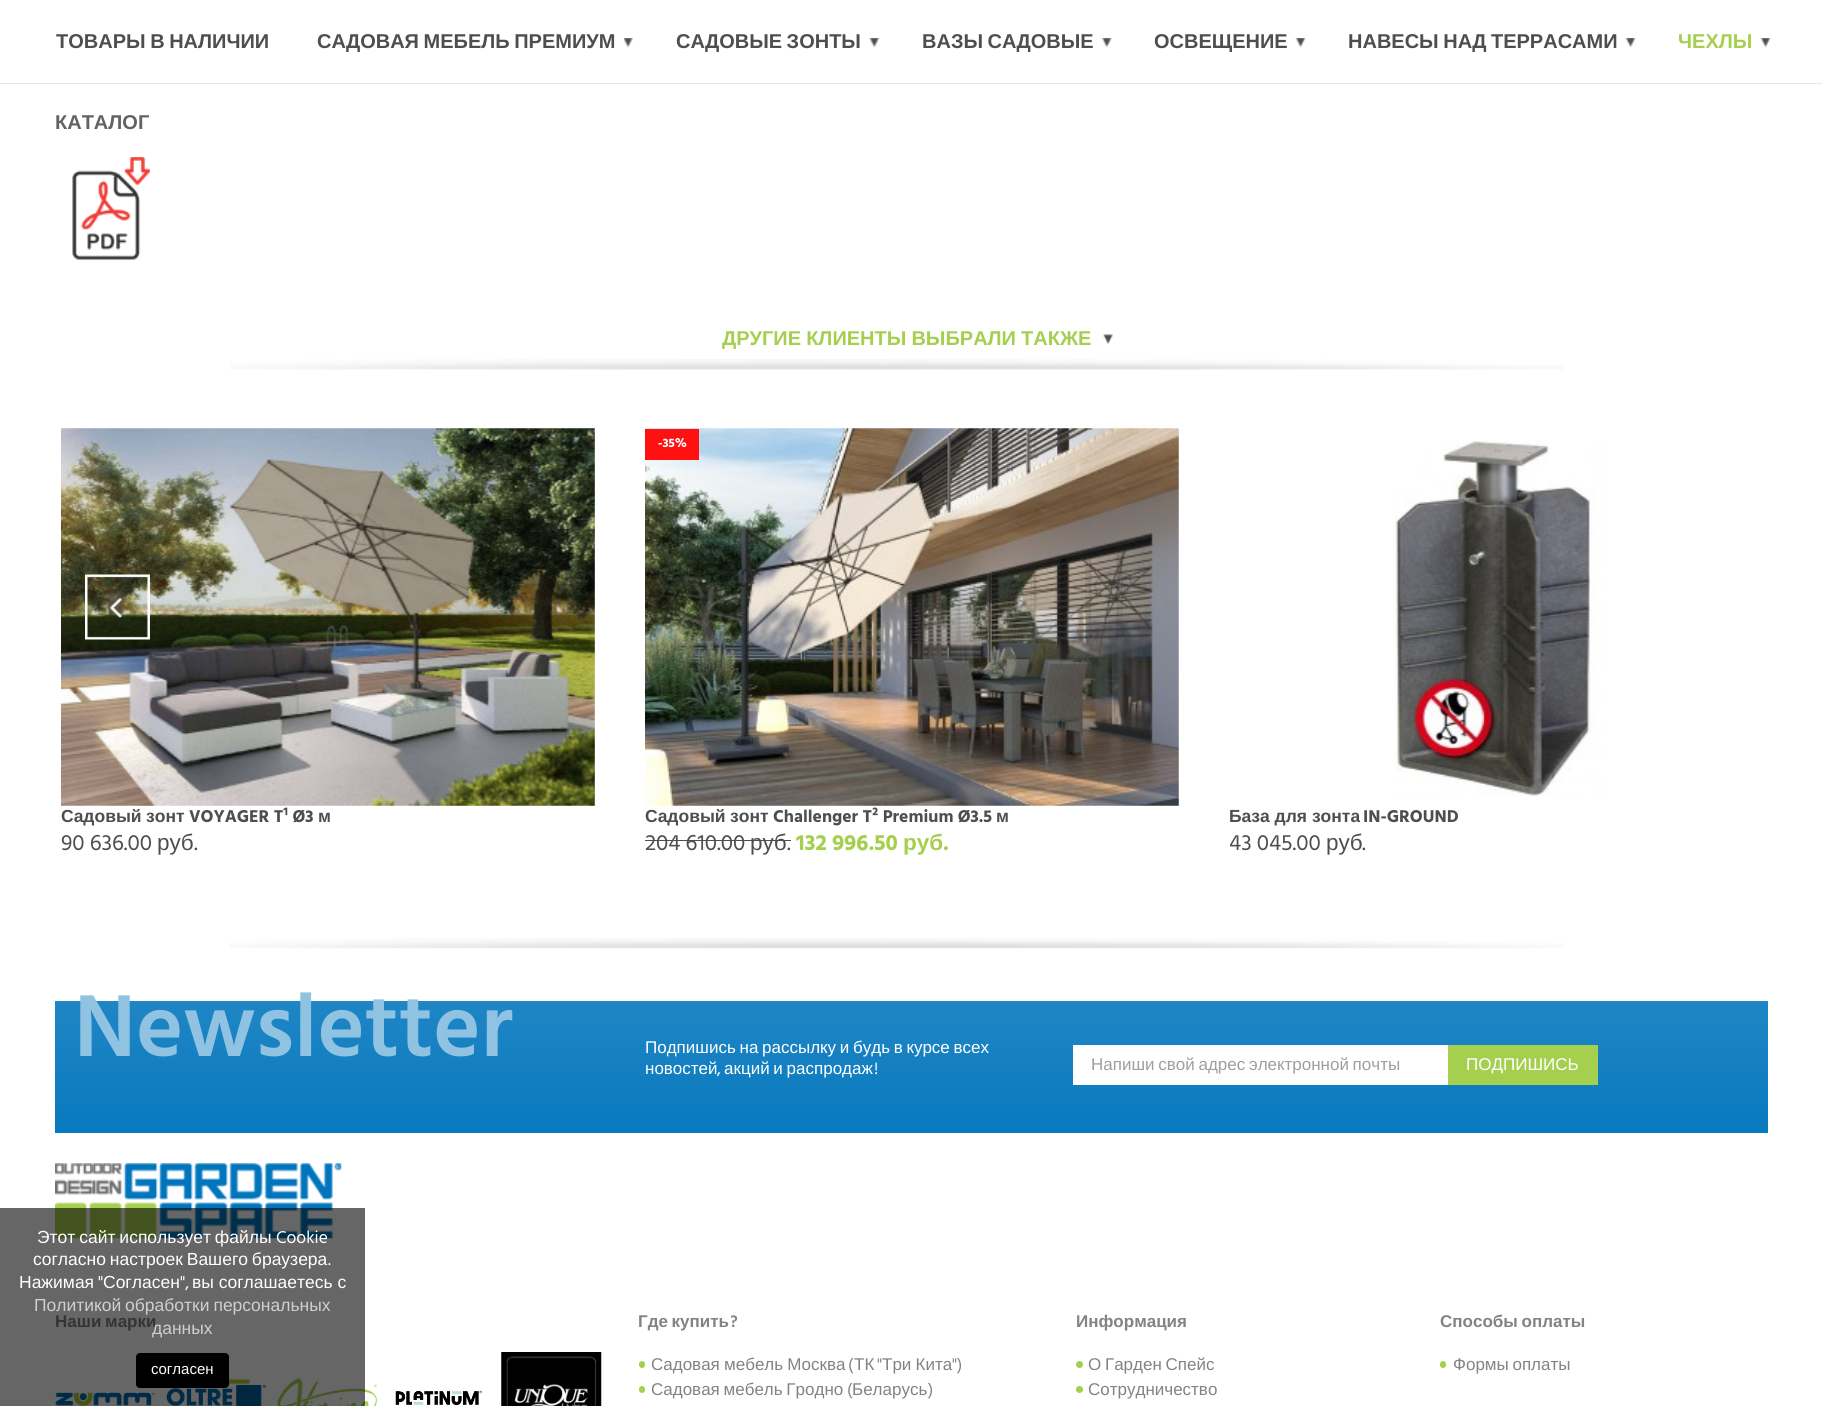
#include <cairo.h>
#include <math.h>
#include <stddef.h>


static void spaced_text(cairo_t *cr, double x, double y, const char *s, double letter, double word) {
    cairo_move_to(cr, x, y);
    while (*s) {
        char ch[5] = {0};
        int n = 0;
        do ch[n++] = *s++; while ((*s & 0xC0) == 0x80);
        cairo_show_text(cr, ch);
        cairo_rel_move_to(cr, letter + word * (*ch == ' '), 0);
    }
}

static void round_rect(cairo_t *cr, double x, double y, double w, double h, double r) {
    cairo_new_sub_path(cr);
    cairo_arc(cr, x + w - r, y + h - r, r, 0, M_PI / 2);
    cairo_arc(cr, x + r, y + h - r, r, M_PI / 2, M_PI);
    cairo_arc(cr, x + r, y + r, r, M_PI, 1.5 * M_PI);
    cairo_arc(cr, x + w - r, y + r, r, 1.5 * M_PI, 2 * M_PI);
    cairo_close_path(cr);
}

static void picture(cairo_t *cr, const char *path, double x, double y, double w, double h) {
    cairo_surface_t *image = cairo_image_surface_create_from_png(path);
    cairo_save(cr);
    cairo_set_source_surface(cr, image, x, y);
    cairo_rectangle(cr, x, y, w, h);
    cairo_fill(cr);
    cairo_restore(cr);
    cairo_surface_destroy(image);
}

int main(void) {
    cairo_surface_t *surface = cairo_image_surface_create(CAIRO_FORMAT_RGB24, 1822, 1406);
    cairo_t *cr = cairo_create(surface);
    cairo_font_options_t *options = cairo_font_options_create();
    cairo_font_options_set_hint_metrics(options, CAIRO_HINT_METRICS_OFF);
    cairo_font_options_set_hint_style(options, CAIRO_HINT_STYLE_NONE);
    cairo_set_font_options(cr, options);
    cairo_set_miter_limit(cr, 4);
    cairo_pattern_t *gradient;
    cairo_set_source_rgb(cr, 1, 1, 1);
    cairo_paint(cr);
    cairo_set_source_rgb(cr, 0.91, 0.91, 0.91);
    cairo_rectangle(cr, 0, 83, 1822, 1);
    cairo_fill(cr);
    cairo_select_font_face(cr, "Liberation Sans", CAIRO_FONT_SLANT_NORMAL, CAIRO_FONT_WEIGHT_BOLD);
    cairo_set_font_size(cr, 20);
    cairo_set_source_rgb(cr, 0.302, 0.306, 0.306);
    spaced_text(cr, 56, 48, "ТОВАРЫ В НАЛИЧИИ", 0, -1);
    spaced_text(cr, 317, 48, "САДОВАЯ МЕБЕЛЬ ПРЕМИУМ", 0, -1);
    picture(cr, "img1.png", 624, 38, 9, 10);
    spaced_text(cr, 676, 48, "САДОВЫЕ ЗОНТЫ", 0, -1);
    picture(cr, "img2.png", 869, 38, 10, 10);
    spaced_text(cr, 922, 48, "ВАЗЫ САДОВЫЕ", 0, -1);
    picture(cr, "img3.png", 1101, 38, 11, 10);
    cairo_move_to(cr, 1154, 48);
    cairo_show_text(cr, "ОСВЕЩЕНИЕ");
    picture(cr, "img4.png", 1295, 38, 11, 10);
    spaced_text(cr, 1348, 48, "НАВЕСЫ НАД ТЕРРАСАМИ", 0, -1);
    picture(cr, "img4.png", 1625, 38, 11, 10);
    cairo_set_source_rgb(cr, 0.647, 0.812, 0.306);
    cairo_move_to(cr, 1678, 48);
    cairo_show_text(cr, "ЧЕХЛЫ");
    picture(cr, "img5.png", 1760, 38, 11, 10);
    cairo_set_source_rgb(cr, 0.388, 0.388, 0.388);
    cairo_move_to(cr, 55, 129);
    cairo_show_text(cr, "КАТАЛОГ");
    picture(cr, "img6.png", 72, 157, 78, 103);
    cairo_set_source_rgb(cr, 0.647, 0.812, 0.306);
    spaced_text(cr, 722, 345, "ДРУГИЕ КЛИЕНТЫ ВЫБРАЛИ ТАКЖЕ", 0, -0.5);
    picture(cr, "img7.png", 1103, 334, 10, 11);
    picture(cr, "img8.png", 230, 359, 1334, 11);
    picture(cr, "img9.png", 61, 428, 534, 378);
    cairo_set_font_size(cr, 17.5);
    cairo_set_source_rgb(cr, 0.302, 0.306, 0.306);
    cairo_move_to(cr, 61, 822);
    cairo_show_text(cr, "Садовый");
    cairo_move_to(cr, 146, 822);
    cairo_show_text(cr, "зонт");
    cairo_select_font_face(cr, "Hind Siliguri", CAIRO_FONT_SLANT_NORMAL, CAIRO_FONT_WEIGHT_BOLD);
    cairo_move_to(cr, 189, 822);
    cairo_show_text(cr, "VOYAGER T¹ Ø3");
    cairo_select_font_face(cr, "Liberation Sans", CAIRO_FONT_SLANT_NORMAL, CAIRO_FONT_WEIGHT_BOLD);
    cairo_move_to(cr, 318, 822);
    cairo_show_text(cr, "м");
    cairo_select_font_face(cr, "Hind Siliguri", CAIRO_FONT_SLANT_NORMAL, CAIRO_FONT_WEIGHT_NORMAL);
    cairo_set_font_size(cr, 22.5);
    cairo_move_to(cr, 61, 850);
    cairo_show_text(cr, "90 636.00");
    cairo_select_font_face(cr, "Liberation Sans", CAIRO_FONT_SLANT_NORMAL, CAIRO_FONT_WEIGHT_NORMAL);
    cairo_move_to(cr, 157, 850);
    cairo_show_text(cr, "руб");
    cairo_select_font_face(cr, "Hind Siliguri", CAIRO_FONT_SLANT_NORMAL, CAIRO_FONT_WEIGHT_NORMAL);
    cairo_move_to(cr, 194, 850);
    cairo_show_text(cr, ".");
    picture(cr, "img10.png", 645, 428, 534, 378);
    cairo_set_source_rgb(cr, 1, 0.067, 0.067);
    cairo_rectangle(cr, 645, 429, 54, 31);
    cairo_fill(cr);
    cairo_select_font_face(cr, "Hind Siliguri", CAIRO_FONT_SLANT_NORMAL, CAIRO_FONT_WEIGHT_BOLD);
    cairo_set_font_size(cr, 12.5);
    cairo_set_source_rgb(cr, 1, 1, 1);
    cairo_move_to(cr, 658, 447);
    cairo_show_text(cr, "-35%");
    cairo_select_font_face(cr, "Liberation Sans", CAIRO_FONT_SLANT_NORMAL, CAIRO_FONT_WEIGHT_BOLD);
    cairo_set_font_size(cr, 17.5);
    cairo_set_source_rgb(cr, 0.302, 0.306, 0.306);
    cairo_move_to(cr, 645, 822);
    cairo_show_text(cr, "Садовый");
    cairo_move_to(cr, 730, 822);
    cairo_show_text(cr, "зонт");
    cairo_select_font_face(cr, "Hind Siliguri", CAIRO_FONT_SLANT_NORMAL, CAIRO_FONT_WEIGHT_BOLD);
    cairo_move_to(cr, 773, 822);
    cairo_show_text(cr, "Challenger T² Premium Ø3.5");
    cairo_select_font_face(cr, "Liberation Sans", CAIRO_FONT_SLANT_NORMAL, CAIRO_FONT_WEIGHT_BOLD);
    cairo_move_to(cr, 996, 822);
    cairo_show_text(cr, "м");
    cairo_select_font_face(cr, "Hind Siliguri", CAIRO_FONT_SLANT_NORMAL, CAIRO_FONT_WEIGHT_NORMAL);
    cairo_set_font_size(cr, 22.5);
    cairo_move_to(cr, 645, 850);
    cairo_show_text(cr, "204 610.00");
    cairo_rectangle(cr, 645, 840, 146, 1);
    cairo_fill(cr);
    cairo_select_font_face(cr, "Liberation Sans", CAIRO_FONT_SLANT_NORMAL, CAIRO_FONT_WEIGHT_NORMAL);
    cairo_move_to(cr, 750, 850);
    cairo_show_text(cr, "руб");
    cairo_select_font_face(cr, "Hind Siliguri", CAIRO_FONT_SLANT_NORMAL, CAIRO_FONT_WEIGHT_NORMAL);
    cairo_move_to(cr, 787, 850);
    cairo_show_text(cr, ".");
    cairo_select_font_face(cr, "Hind Siliguri", CAIRO_FONT_SLANT_NORMAL, CAIRO_FONT_WEIGHT_BOLD);
    cairo_set_source_rgb(cr, 0.647, 0.812, 0.306);
    cairo_move_to(cr, 796, 850);
    cairo_show_text(cr, "132 996.50");
    cairo_select_font_face(cr, "Liberation Sans", CAIRO_FONT_SLANT_NORMAL, CAIRO_FONT_WEIGHT_BOLD);
    cairo_move_to(cr, 903, 850);
    cairo_show_text(cr, "руб");
    cairo_select_font_face(cr, "Hind Siliguri", CAIRO_FONT_SLANT_NORMAL, CAIRO_FONT_WEIGHT_BOLD);
    cairo_move_to(cr, 943, 850);
    cairo_show_text(cr, ".");
    picture(cr, "img11.png", 1394, 440, 214, 358);
    cairo_select_font_face(cr, "Liberation Sans", CAIRO_FONT_SLANT_NORMAL, CAIRO_FONT_WEIGHT_BOLD);
    cairo_set_font_size(cr, 17.5);
    cairo_set_source_rgb(cr, 0.302, 0.306, 0.306);
    cairo_move_to(cr, 1229, 822);
    cairo_show_text(cr, "База для зонта");
    cairo_select_font_face(cr, "Hind Siliguri", CAIRO_FONT_SLANT_NORMAL, CAIRO_FONT_WEIGHT_BOLD);
    cairo_move_to(cr, 1363, 822);
    cairo_show_text(cr, "IN-GROUND");
    cairo_select_font_face(cr, "Hind Siliguri", CAIRO_FONT_SLANT_NORMAL, CAIRO_FONT_WEIGHT_NORMAL);
    cairo_set_font_size(cr, 22.5);
    cairo_move_to(cr, 1229, 850);
    cairo_show_text(cr, "43 045.00");
    cairo_select_font_face(cr, "Liberation Sans", CAIRO_FONT_SLANT_NORMAL, CAIRO_FONT_WEIGHT_NORMAL);
    cairo_move_to(cr, 1326, 850);
    cairo_show_text(cr, "руб");
    cairo_select_font_face(cr, "Hind Siliguri", CAIRO_FONT_SLANT_NORMAL, CAIRO_FONT_WEIGHT_NORMAL);
    cairo_move_to(cr, 1362, 850);
    cairo_show_text(cr, ".");
    picture(cr, "img12.png", 85, 574, 65, 66);
    picture(cr, "img13.png", 230, 938, 1334, 11);
    gradient = cairo_pattern_create_linear(911, 1001, 911, 1133);
    cairo_pattern_add_color_stop_rgba(gradient, 0, 0.125, 0.525, 0.773, 1);
    cairo_pattern_add_color_stop_rgba(gradient, 1, 0.027, 0.475, 0.745, 1);
    cairo_set_source(cr, gradient);
    cairo_pattern_destroy(gradient);
    cairo_rectangle(cr, 55, 1001, 1713, 132);
    cairo_fill(cr);
    cairo_select_font_face(cr, "Hind Siliguri SemiBold", CAIRO_FONT_SLANT_NORMAL, CAIRO_FONT_WEIGHT_NORMAL);
    cairo_set_font_size(cr, 90);
    cairo_set_source_rgb(cr, 0.565, 0.765, 0.886);
    cairo_move_to(cr, 74, 1056);
    cairo_show_text(cr, "Newsletter");
    cairo_select_font_face(cr, "Liberation Sans", CAIRO_FONT_SLANT_NORMAL, CAIRO_FONT_WEIGHT_NORMAL);
    cairo_set_font_size(cr, 17);
    cairo_set_source_rgb(cr, 1, 1, 1);
    spaced_text(cr, 645, 1053, "Подпишись на рассылку и будь в курсе всех", 0, -1);
    cairo_move_to(cr, 645, 1074);
    cairo_show_text(cr, "новостей");
    cairo_select_font_face(cr, "Hind Siliguri", CAIRO_FONT_SLANT_NORMAL, CAIRO_FONT_WEIGHT_NORMAL);
    cairo_move_to(cr, 717, 1074);
    cairo_show_text(cr, ",");
    cairo_select_font_face(cr, "Liberation Sans", CAIRO_FONT_SLANT_NORMAL, CAIRO_FONT_WEIGHT_NORMAL);
    spaced_text(cr, 724, 1074, "акций и распродаж", 0, -1);
    cairo_select_font_face(cr, "Hind Siliguri", CAIRO_FONT_SLANT_NORMAL, CAIRO_FONT_WEIGHT_NORMAL);
    cairo_move_to(cr, 874, 1074);
    cairo_show_text(cr, "!");
    cairo_rectangle(cr, 1073, 1045, 375, 40);
    cairo_fill(cr);
    cairo_select_font_face(cr, "Liberation Sans", CAIRO_FONT_SLANT_NORMAL, CAIRO_FONT_WEIGHT_NORMAL);
    cairo_set_source_rgb(cr, 0.624, 0.624, 0.624);
    spaced_text(cr, 1091, 1070, "Напиши свой адрес электронной почты", 0, -1);
    cairo_set_source_rgb(cr, 0.647, 0.812, 0.306);
    cairo_rectangle(cr, 1448, 1045, 150, 40);
    cairo_fill(cr);
    cairo_set_source_rgb(cr, 1, 1, 1);
    cairo_move_to(cr, 1466, 1070);
    cairo_show_text(cr, "ПОДПИШИСЬ");
    picture(cr, "img14.png", 55, 1163, 287, 76);
    cairo_select_font_face(cr, "Liberation Sans", CAIRO_FONT_SLANT_NORMAL, CAIRO_FONT_WEIGHT_BOLD);
    cairo_set_source_rgb(cr, 0.514, 0.514, 0.514);
    spaced_text(cr, 55, 1327, "Наши марки", 0, -1);
    picture(cr, "img15.png", 55, 1392, 100, 14);
    picture(cr, "img16.png", 166, 1379, 101, 27);
    picture(cr, "img17.png", 277, 1378, 100, 28);
    picture(cr, "img18.png", 395, 1390, 87, 16);
    picture(cr, "img19.png", 501, 1352, 101, 54);
    spaced_text(cr, 638, 1327, "Где купить", 0, -1);
    cairo_select_font_face(cr, "Hind Siliguri SemiBold", CAIRO_FONT_SLANT_NORMAL, CAIRO_FONT_WEIGHT_NORMAL);
    cairo_move_to(cr, 730, 1327);
    cairo_show_text(cr, "?");
    cairo_set_source_rgb(cr, 0.647, 0.812, 0.306);
    round_rect(cr, 639, 1361, 6, 7, 3);
    cairo_fill(cr);
    cairo_select_font_face(cr, "Liberation Sans", CAIRO_FONT_SLANT_NORMAL, CAIRO_FONT_WEIGHT_NORMAL);
    cairo_set_source_rgb(cr, 0.514, 0.514, 0.514);
    spaced_text(cr, 651, 1370, "Садовая мебель Москва", 0, -0.5);
    cairo_select_font_face(cr, "Hind Siliguri", CAIRO_FONT_SLANT_NORMAL, CAIRO_FONT_WEIGHT_NORMAL);
    cairo_move_to(cr, 848, 1370);
    cairo_show_text(cr, "(");
    cairo_select_font_face(cr, "Liberation Sans", CAIRO_FONT_SLANT_NORMAL, CAIRO_FONT_WEIGHT_NORMAL);
    cairo_move_to(cr, 854, 1370);
    cairo_show_text(cr, "ТК");
    cairo_select_font_face(cr, "Hind Siliguri", CAIRO_FONT_SLANT_NORMAL, CAIRO_FONT_WEIGHT_NORMAL);
    cairo_move_to(cr, 877, 1370);
    cairo_show_text(cr, "\"");
    cairo_select_font_face(cr, "Liberation Sans", CAIRO_FONT_SLANT_NORMAL, CAIRO_FONT_WEIGHT_NORMAL);
    spaced_text(cr, 882, 1370, "Три Кита", 0, -0.5);
    cairo_select_font_face(cr, "Hind Siliguri", CAIRO_FONT_SLANT_NORMAL, CAIRO_FONT_WEIGHT_NORMAL);
    cairo_move_to(cr, 952, 1370);
    cairo_show_text(cr, "\")");
    cairo_set_source_rgb(cr, 0.647, 0.812, 0.306);
    round_rect(cr, 639, 1386, 6, 7, 3);
    cairo_fill(cr);
    cairo_select_font_face(cr, "Liberation Sans", CAIRO_FONT_SLANT_NORMAL, CAIRO_FONT_WEIGHT_NORMAL);
    cairo_set_source_rgb(cr, 0.514, 0.514, 0.514);
    spaced_text(cr, 651, 1395, "Садовая мебель Гродно", 0, -1);
    cairo_select_font_face(cr, "Hind Siliguri", CAIRO_FONT_SLANT_NORMAL, CAIRO_FONT_WEIGHT_NORMAL);
    cairo_move_to(cr, 847, 1395);
    cairo_show_text(cr, "(");
    cairo_select_font_face(cr, "Liberation Sans", CAIRO_FONT_SLANT_NORMAL, CAIRO_FONT_WEIGHT_NORMAL);
    cairo_move_to(cr, 852, 1395);
    cairo_show_text(cr, "Беларусь");
    cairo_select_font_face(cr, "Hind Siliguri", CAIRO_FONT_SLANT_NORMAL, CAIRO_FONT_WEIGHT_NORMAL);
    cairo_move_to(cr, 928, 1395);
    cairo_show_text(cr, ")");
    cairo_select_font_face(cr, "Liberation Sans", CAIRO_FONT_SLANT_NORMAL, CAIRO_FONT_WEIGHT_BOLD);
    cairo_move_to(cr, 1076, 1327);
    cairo_show_text(cr, "Информация");
    cairo_set_source_rgb(cr, 0.647, 0.812, 0.306);
    cairo_new_path(cr);
    cairo_arc(cr, 1079.5, 1364.5, 3.5, 0, 2 * M_PI);
    cairo_fill(cr);
    cairo_select_font_face(cr, "Liberation Sans", CAIRO_FONT_SLANT_NORMAL, CAIRO_FONT_WEIGHT_NORMAL);
    cairo_set_source_rgb(cr, 0.514, 0.514, 0.514);
    spaced_text(cr, 1088, 1370, "О Гарден Спейс", 0, -1);
    cairo_set_source_rgb(cr, 0.647, 0.812, 0.306);
    cairo_new_path(cr);
    cairo_arc(cr, 1079.5, 1389.5, 3.5, 0, 2 * M_PI);
    cairo_fill(cr);
    cairo_set_source_rgb(cr, 0.514, 0.514, 0.514);
    cairo_move_to(cr, 1088, 1395);
    cairo_show_text(cr, "Сотрудничество");
    cairo_select_font_face(cr, "Liberation Sans", CAIRO_FONT_SLANT_NORMAL, CAIRO_FONT_WEIGHT_BOLD);
    spaced_text(cr, 1440, 1327, "Способы оплаты", 0, -1);
    cairo_set_source_rgb(cr, 0.647, 0.812, 0.306);
    round_rect(cr, 1440, 1361, 6, 7, 3);
    cairo_fill(cr);
    cairo_select_font_face(cr, "Liberation Sans", CAIRO_FONT_SLANT_NORMAL, CAIRO_FONT_WEIGHT_NORMAL);
    cairo_set_source_rgb(cr, 0.514, 0.514, 0.514);
    spaced_text(cr, 1453, 1370, "Формы оплаты", 0, -1);
    cairo_set_source_rgba(cr, 0, 0, 0, 0.6);
    cairo_rectangle(cr, 0, 1208, 365, 198);
    cairo_fill(cr);
    cairo_set_font_size(cr, 17.5);
    cairo_set_source_rgb(cr, 1, 1, 1);
    spaced_text(cr, 37, 1243, "Этот сайт использует файлы", 0, -1);
    cairo_select_font_face(cr, "Hind Siliguri", CAIRO_FONT_SLANT_NORMAL, CAIRO_FONT_WEIGHT_NORMAL);
    cairo_move_to(cr, 276, 1243);
    cairo_show_text(cr, "Cookie");
    cairo_select_font_face(cr, "Liberation Sans", CAIRO_FONT_SLANT_NORMAL, CAIRO_FONT_WEIGHT_NORMAL);
    spaced_text(cr, 33, 1265, "согласно настроек Вашего браузера", 0, -1);
    cairo_select_font_face(cr, "Hind Siliguri", CAIRO_FONT_SLANT_NORMAL, CAIRO_FONT_WEIGHT_NORMAL);
    cairo_move_to(cr, 328, 1265);
    cairo_show_text(cr, ".");
    cairo_select_font_face(cr, "Liberation Sans", CAIRO_FONT_SLANT_NORMAL, CAIRO_FONT_WEIGHT_NORMAL);
    cairo_move_to(cr, 19, 1288);
    cairo_show_text(cr, "Нажимая");
    cairo_select_font_face(cr, "Hind Siliguri", CAIRO_FONT_SLANT_NORMAL, CAIRO_FONT_WEIGHT_NORMAL);
    cairo_move_to(cr, 98, 1288);
    cairo_show_text(cr, "\"");
    cairo_select_font_face(cr, "Liberation Sans", CAIRO_FONT_SLANT_NORMAL, CAIRO_FONT_WEIGHT_NORMAL);
    cairo_move_to(cr, 103, 1288);
    cairo_show_text(cr, "Согласен");
    cairo_select_font_face(cr, "Hind Siliguri", CAIRO_FONT_SLANT_NORMAL, CAIRO_FONT_WEIGHT_NORMAL);
    cairo_move_to(cr, 180, 1288);
    cairo_show_text(cr, "\",");
    cairo_select_font_face(cr, "Liberation Sans", CAIRO_FONT_SLANT_NORMAL, CAIRO_FONT_WEIGHT_NORMAL);
    cairo_move_to(cr, 192, 1288);
    cairo_show_text(cr, "вы соглашаетесь с");
    cairo_set_source_rgb(cr, 0.812, 0.812, 0.812);
    spaced_text(cr, 34, 1311, "Политикой обработки персональных", 0, -1);
    cairo_move_to(cr, 152, 1334);
    cairo_show_text(cr, "данных");
    cairo_set_source_rgb(cr, 0, 0, 0);
    round_rect(cr, 136, 1353, 93, 35, 4);
    cairo_fill(cr);
    cairo_set_font_size(cr, 15);
    cairo_set_source_rgb(cr, 1, 1, 1);
    cairo_move_to(cr, 151, 1374);
    cairo_show_text(cr, "согласен");
    cairo_surface_write_to_png(surface, "page.png");
    cairo_font_options_destroy(options);
    cairo_destroy(cr);
    cairo_surface_destroy(surface);
    return 0;
}
